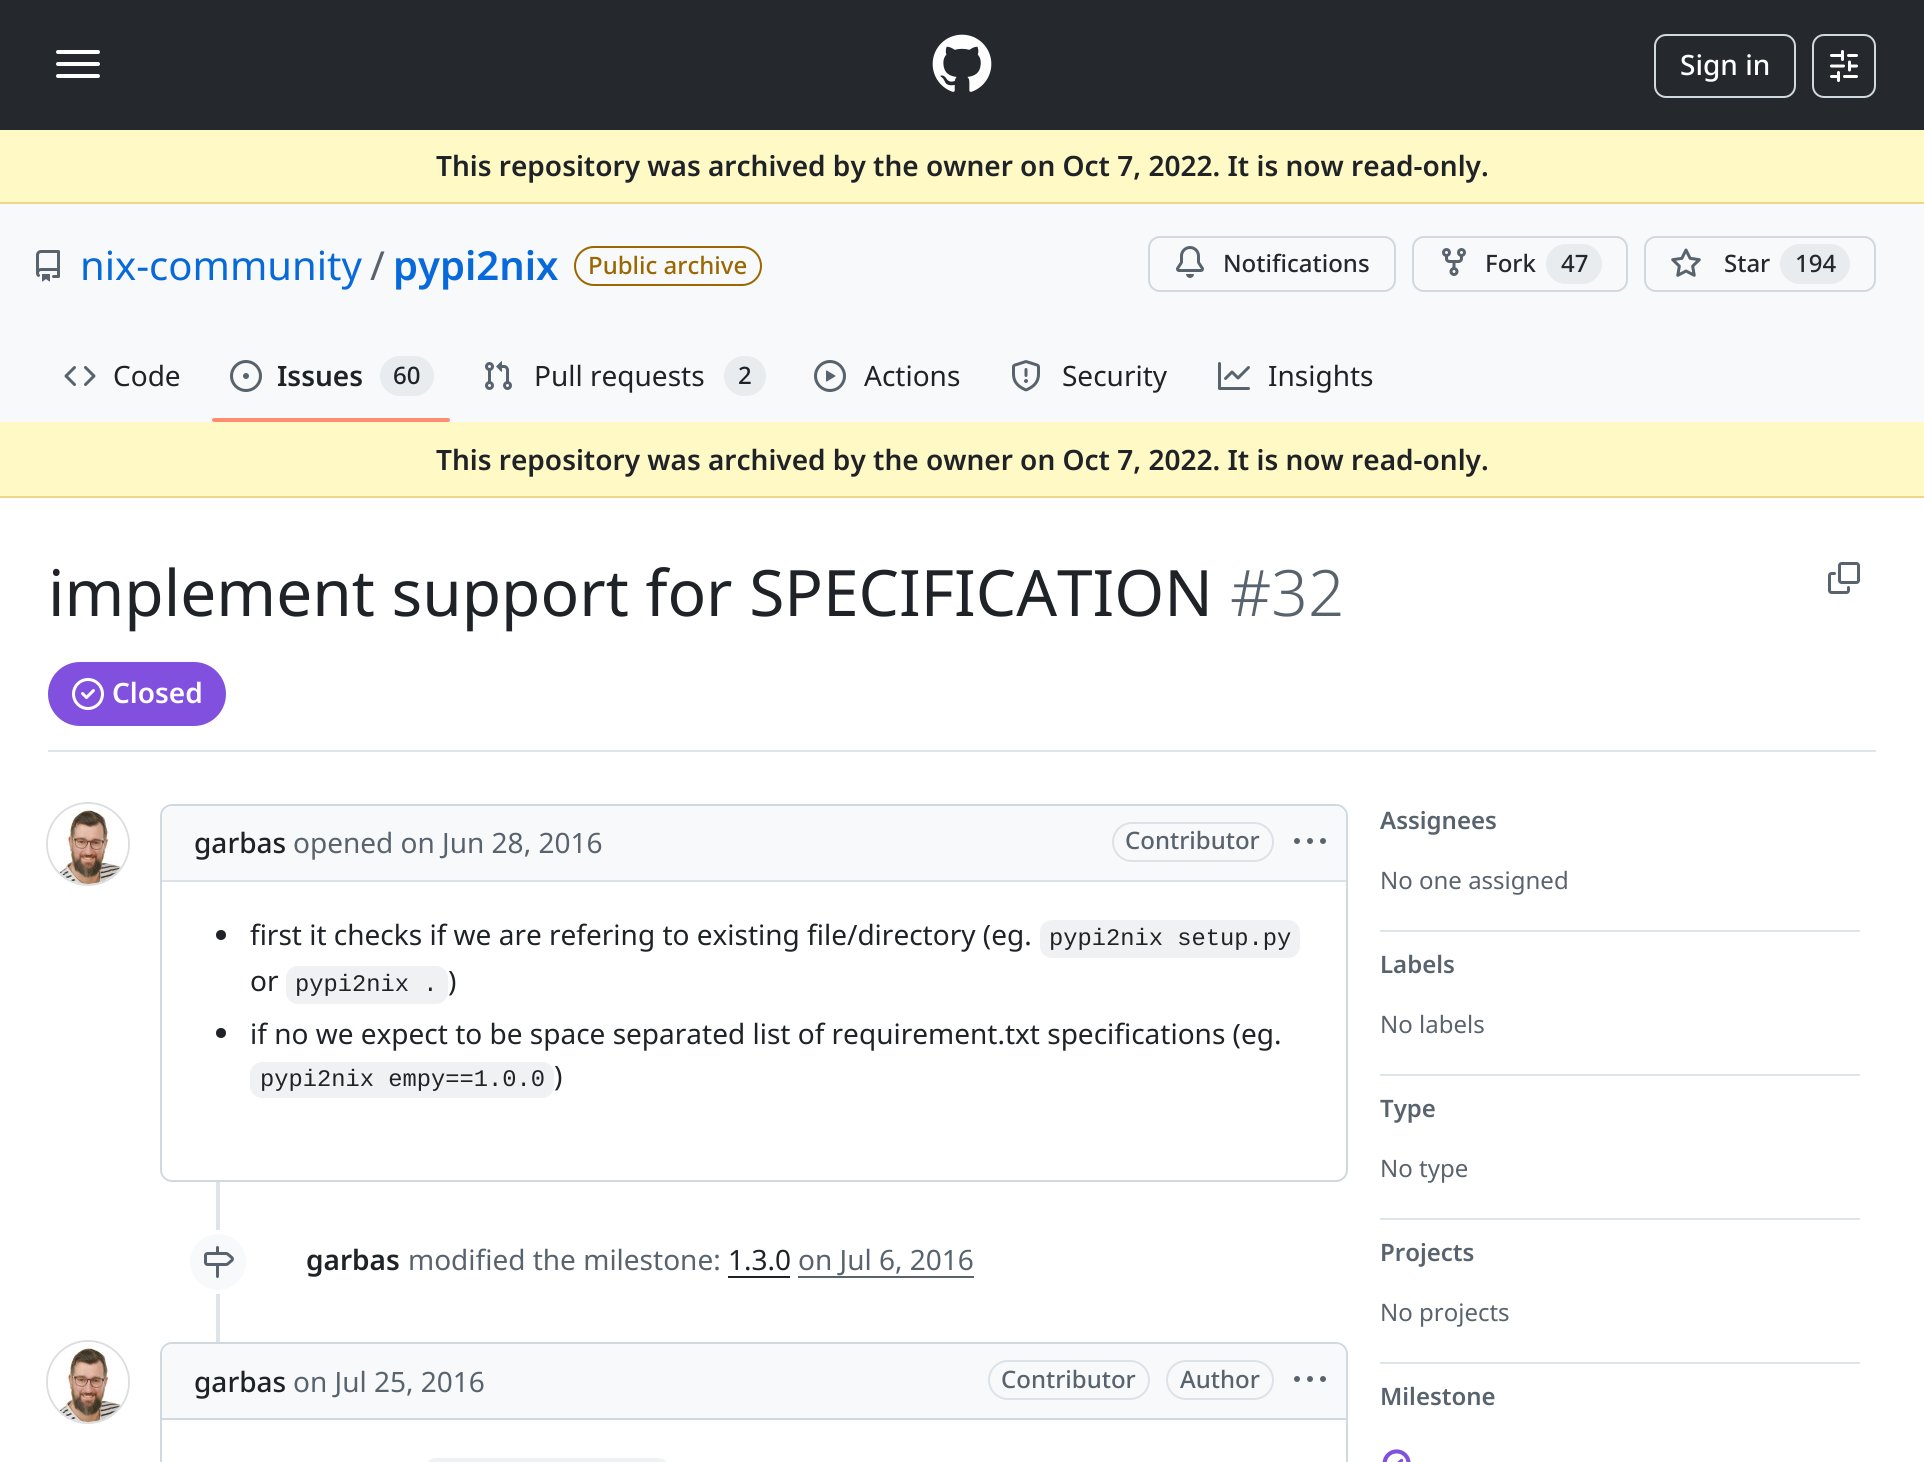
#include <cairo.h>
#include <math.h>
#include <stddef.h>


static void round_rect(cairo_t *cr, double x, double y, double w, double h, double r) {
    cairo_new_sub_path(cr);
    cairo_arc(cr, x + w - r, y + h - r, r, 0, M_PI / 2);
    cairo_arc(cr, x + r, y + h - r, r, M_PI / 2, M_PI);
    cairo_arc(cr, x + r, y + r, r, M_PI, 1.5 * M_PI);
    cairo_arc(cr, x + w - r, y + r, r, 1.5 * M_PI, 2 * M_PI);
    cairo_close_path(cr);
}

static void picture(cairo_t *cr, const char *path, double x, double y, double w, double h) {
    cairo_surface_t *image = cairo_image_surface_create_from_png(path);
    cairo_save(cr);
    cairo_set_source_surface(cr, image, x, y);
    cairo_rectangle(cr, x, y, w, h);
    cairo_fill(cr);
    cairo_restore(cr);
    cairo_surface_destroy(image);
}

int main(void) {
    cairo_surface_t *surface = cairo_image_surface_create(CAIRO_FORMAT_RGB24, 1924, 1462);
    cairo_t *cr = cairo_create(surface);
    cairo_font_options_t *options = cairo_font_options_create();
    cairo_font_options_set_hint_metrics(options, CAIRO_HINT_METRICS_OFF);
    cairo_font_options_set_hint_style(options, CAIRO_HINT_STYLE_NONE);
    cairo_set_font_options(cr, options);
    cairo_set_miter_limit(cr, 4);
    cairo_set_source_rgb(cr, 1, 1, 1);
    cairo_paint(cr);
    cairo_set_source_rgb(cr, 0.145, 0.161, 0.18);
    cairo_rectangle(cr, 0, 0, 1924, 130);
    cairo_fill(cr);
    cairo_set_source_rgb(cr, 1, 1, 1);
    round_rect(cr, 56, 50, 44, 4, 2);
    cairo_fill(cr);
    round_rect(cr, 56, 62, 44, 4, 2);
    cairo_fill(cr);
    round_rect(cr, 56, 74, 44, 4, 2);
    cairo_fill(cr);
    picture(cr, "img1.png", 932, 34, 60, 58);
    round_rect(cr, 1655, 35, 140, 62, 11);
    cairo_set_source_rgb(cr, 0.82, 0.851, 0.878);
    cairo_stroke(cr);
    cairo_select_font_face(cr, "Noto Sans Medium", CAIRO_FONT_SLANT_NORMAL, CAIRO_FONT_WEIGHT_NORMAL);
    cairo_set_font_size(cr, 28);
    cairo_set_source_rgb(cr, 1, 1, 1);
    cairo_move_to(cr, 1680, 75);
    cairo_show_text(cr, "Sign in");
    round_rect(cr, 1813, 35, 62, 62, 11);
    cairo_set_source_rgb(cr, 0.82, 0.851, 0.878);
    cairo_stroke(cr);
    picture(cr, "img2.png", 1830, 50, 28, 32);
    cairo_set_source_rgb(cr, 1, 0.973, 0.773);
    cairo_rectangle(cr, 0, 130, 1924, 72);
    cairo_fill(cr);
    cairo_set_source_rgb(cr, 0.933, 0.847, 0.533);
    cairo_rectangle(cr, 0, 202, 1924, 2);
    cairo_fill(cr);
    cairo_select_font_face(cr, "Noto Sans SemiBold", CAIRO_FONT_SLANT_NORMAL, CAIRO_FONT_WEIGHT_NORMAL);
    cairo_set_source_rgb(cr, 0.122, 0.137, 0.157);
    cairo_move_to(cr, 436, 176);
    cairo_show_text(cr, "This repository was archived by the owner on Oct 7, 2022. It is now read-only.");
    cairo_set_source_rgb(cr, 0.965, 0.973, 0.98);
    cairo_rectangle(cr, 0, 204, 1924, 218);
    cairo_fill(cr);
    picture(cr, "img3.png", 36, 250, 24, 32);
    cairo_select_font_face(cr, "Noto Sans", CAIRO_FONT_SLANT_NORMAL, CAIRO_FONT_WEIGHT_NORMAL);
    cairo_set_font_size(cr, 40);
    cairo_set_source_rgb(cr, 0.035, 0.412, 0.855);
    cairo_move_to(cr, 80, 280);
    cairo_show_text(cr, "nix-community");
    cairo_set_source_rgb(cr, 0.349, 0.388, 0.431);
    cairo_move_to(cr, 370, 280);
    cairo_show_text(cr, "/");
    cairo_select_font_face(cr, "Noto Sans SemiBold", CAIRO_FONT_SLANT_NORMAL, CAIRO_FONT_WEIGHT_NORMAL);
    cairo_set_source_rgb(cr, 0.035, 0.412, 0.855);
    cairo_move_to(cr, 393, 280);
    cairo_show_text(cr, "pypi2nix");
    round_rect(cr, 575, 247, 186, 38, 19);
    cairo_set_source_rgb(cr, 0.604, 0.404, 0);
    cairo_stroke(cr);
    cairo_select_font_face(cr, "Noto Sans Medium", CAIRO_FONT_SLANT_NORMAL, CAIRO_FONT_WEIGHT_NORMAL);
    cairo_set_font_size(cr, 24);
    cairo_move_to(cr, 588, 274);
    cairo_show_text(cr, "Public archive");
    round_rect(cr, 1149, 237, 246, 54, 11);
    cairo_set_source_rgb(cr, 0.82, 0.851, 0.878);
    cairo_stroke(cr);
    picture(cr, "img4.png", 1176, 246, 28, 32);
    cairo_set_source_rgb(cr, 0.145, 0.161, 0.18);
    cairo_move_to(cr, 1223, 272);
    cairo_show_text(cr, "Notifications");
    round_rect(cr, 1413, 237, 214, 54, 11);
    cairo_set_source_rgb(cr, 0.82, 0.851, 0.878);
    cairo_stroke(cr);
    picture(cr, "img5.png", 1442, 248, 24, 28);
    cairo_set_source_rgb(cr, 0.145, 0.161, 0.18);
    cairo_move_to(cr, 1485, 272);
    cairo_show_text(cr, "Fork");
    cairo_set_source_rgb(cr, 0.91, 0.922, 0.933);
    round_rect(cr, 1546, 244, 56, 40, 20);
    cairo_fill(cr);
    cairo_set_source_rgb(cr, 0.145, 0.161, 0.18);
    cairo_move_to(cr, 1561, 272);
    cairo_show_text(cr, "47");
    round_rect(cr, 1645, 237, 230, 54, 11);
    cairo_set_source_rgb(cr, 0.82, 0.851, 0.878);
    cairo_stroke(cr);
    picture(cr, "img6.png", 1671, 248, 30, 29);
    cairo_set_source_rgb(cr, 0.145, 0.161, 0.18);
    cairo_move_to(cr, 1724, 272);
    cairo_show_text(cr, "Star");
    cairo_set_source_rgb(cr, 0.91, 0.922, 0.933);
    round_rect(cr, 1780, 244, 70, 40, 20);
    cairo_fill(cr);
    cairo_set_source_rgb(cr, 0.145, 0.161, 0.18);
    cairo_move_to(cr, 1795, 272);
    cairo_show_text(cr, "194");
    picture(cr, "img7.png", 64, 366, 32, 20);
    cairo_select_font_face(cr, "Noto Sans", CAIRO_FONT_SLANT_NORMAL, CAIRO_FONT_WEIGHT_NORMAL);
    cairo_set_font_size(cr, 28);
    cairo_set_source_rgb(cr, 0.122, 0.137, 0.157);
    cairo_move_to(cr, 113, 386);
    cairo_show_text(cr, "Code");
    picture(cr, "img8.png", 230, 360, 32, 32);
    cairo_select_font_face(cr, "Noto Sans SemiBold", CAIRO_FONT_SLANT_NORMAL, CAIRO_FONT_WEIGHT_NORMAL);
    cairo_move_to(cr, 277, 386);
    cairo_show_text(cr, "Issues");
    cairo_set_source_rgb(cr, 0.91, 0.922, 0.933);
    round_rect(cr, 380, 356, 54, 40, 20);
    cairo_fill(cr);
    cairo_select_font_face(cr, "Noto Sans Medium", CAIRO_FONT_SLANT_NORMAL, CAIRO_FONT_WEIGHT_NORMAL);
    cairo_set_font_size(cr, 24);
    cairo_set_source_rgb(cr, 0.122, 0.137, 0.157);
    cairo_move_to(cr, 393, 384);
    cairo_show_text(cr, "60");
    cairo_set_source_rgb(cr, 0.992, 0.549, 0.451);
    round_rect(cr, 212, 418, 238, 4, 2);
    cairo_fill(cr);
    picture(cr, "img9.png", 485, 361, 27, 29);
    cairo_select_font_face(cr, "Noto Sans", CAIRO_FONT_SLANT_NORMAL, CAIRO_FONT_WEIGHT_NORMAL);
    cairo_set_font_size(cr, 28);
    cairo_set_source_rgb(cr, 0.122, 0.137, 0.157);
    cairo_move_to(cr, 534, 386);
    cairo_show_text(cr, "Pull requests");
    cairo_set_source_rgb(cr, 0.91, 0.922, 0.933);
    round_rect(cr, 724, 356, 42, 40, 20);
    cairo_fill(cr);
    cairo_select_font_face(cr, "Noto Sans Medium", CAIRO_FONT_SLANT_NORMAL, CAIRO_FONT_WEIGHT_NORMAL);
    cairo_set_font_size(cr, 24);
    cairo_set_source_rgb(cr, 0.122, 0.137, 0.157);
    cairo_move_to(cr, 738, 384);
    cairo_show_text(cr, "2");
    picture(cr, "img10.png", 814, 360, 32, 32);
    cairo_select_font_face(cr, "Noto Sans", CAIRO_FONT_SLANT_NORMAL, CAIRO_FONT_WEIGHT_NORMAL);
    cairo_set_font_size(cr, 28);
    cairo_move_to(cr, 864, 386);
    cairo_show_text(cr, "Actions");
    picture(cr, "img11.png", 1012, 360, 28, 32);
    cairo_move_to(cr, 1062, 386);
    cairo_show_text(cr, "Security");
    picture(cr, "img12.png", 1218, 362, 32, 28);
    cairo_move_to(cr, 1268, 386);
    cairo_show_text(cr, "Insights");
    cairo_set_source_rgb(cr, 1, 0.973, 0.773);
    cairo_rectangle(cr, 0, 422, 1924, 74);
    cairo_fill(cr);
    cairo_set_source_rgb(cr, 0.933, 0.847, 0.533);
    cairo_rectangle(cr, 0, 496, 1924, 2);
    cairo_fill(cr);
    cairo_select_font_face(cr, "Noto Sans SemiBold", CAIRO_FONT_SLANT_NORMAL, CAIRO_FONT_WEIGHT_NORMAL);
    cairo_set_source_rgb(cr, 0.122, 0.137, 0.157);
    cairo_move_to(cr, 436, 470);
    cairo_show_text(cr, "This repository was archived by the owner on Oct 7, 2022. It is now read-only.");
    cairo_select_font_face(cr, "Noto Sans", CAIRO_FONT_SLANT_NORMAL, CAIRO_FONT_WEIGHT_NORMAL);
    cairo_set_font_size(cr, 64);
    cairo_move_to(cr, 48, 616);
    cairo_show_text(cr, "implement support for SPECIFICATION");
    cairo_select_font_face(cr, "Noto Sans Light", CAIRO_FONT_SLANT_NORMAL, CAIRO_FONT_WEIGHT_NORMAL);
    cairo_set_source_rgb(cr, 0.349, 0.388, 0.431);
    cairo_move_to(cr, 1230, 616);
    cairo_show_text(cr, "#32");
    picture(cr, "img13.png", 1828, 562, 32, 32);
    cairo_set_source_rgb(cr, 0.875, 0.894, 0.914);
    cairo_rectangle(cr, 48, 750, 1828, 2);
    cairo_fill(cr);
    cairo_set_source_rgb(cr, 0.51, 0.314, 0.875);
    round_rect(cr, 49, 663, 176, 62, 31);
    cairo_fill_preserve(cr);
    cairo_stroke(cr);
    picture(cr, "img14.png", 72, 678, 32, 32);
    cairo_select_font_face(cr, "Noto Sans SemiBold", CAIRO_FONT_SLANT_NORMAL, CAIRO_FONT_WEIGHT_NORMAL);
    cairo_set_font_size(cr, 28);
    cairo_set_source_rgb(cr, 1, 1, 1);
    cairo_move_to(cr, 112, 703);
    cairo_show_text(cr, "Closed");
    cairo_new_path(cr);
    cairo_arc(cr, 88, 844, 41, 0, 2 * M_PI);
    cairo_set_source_rgb(cr, 0.867, 0.871, 0.875);
    cairo_stroke(cr);
    picture(cr, "img15.png", 48, 804, 80, 80);
    round_rect(cr, 161, 805, 1186, 376, 11);
    cairo_set_source_rgb(cr, 0.82, 0.851, 0.878);
    cairo_stroke(cr);
    cairo_set_source_rgb(cr, 0.965, 0.973, 0.98);
    cairo_new_path(cr);
    cairo_move_to(cr, 174, 806);
    cairo_line_to(cr, 1334, 806);
    cairo_curve_to(cr, 1340.5, 806, 1346, 811.5, 1346, 818);
    cairo_line_to(cr, 1346, 882);
    cairo_line_to(cr, 162, 882);
    cairo_line_to(cr, 162, 818);
    cairo_curve_to(cr, 162, 811.5, 167.5, 806, 174, 806);
    cairo_close_path(cr);
    cairo_fill(cr);
    cairo_set_source_rgb(cr, 0.863, 0.886, 0.91);
    cairo_rectangle(cr, 162, 880, 1184, 2);
    cairo_fill(cr);
    cairo_select_font_face(cr, "Noto Sans Medium", CAIRO_FONT_SLANT_NORMAL, CAIRO_FONT_WEIGHT_NORMAL);
    cairo_set_source_rgb(cr, 0.122, 0.137, 0.157);
    cairo_move_to(cr, 194, 853);
    cairo_show_text(cr, "garbas");
    cairo_select_font_face(cr, "Noto Sans", CAIRO_FONT_SLANT_NORMAL, CAIRO_FONT_WEIGHT_NORMAL);
    cairo_set_source_rgb(cr, 0.349, 0.388, 0.431);
    cairo_move_to(cr, 293, 853);
    cairo_show_text(cr, "opened on Jun 28, 2016");
    round_rect(cr, 1113, 823, 160, 38, 19);
    cairo_set_source_rgb(cr, 0.863, 0.886, 0.91);
    cairo_stroke(cr);
    cairo_select_font_face(cr, "Noto Sans Medium", CAIRO_FONT_SLANT_NORMAL, CAIRO_FONT_WEIGHT_NORMAL);
    cairo_set_font_size(cr, 24);
    cairo_set_source_rgb(cr, 0.349, 0.388, 0.431);
    cairo_move_to(cr, 1125, 849);
    cairo_show_text(cr, "Contributor");
    picture(cr, "img16.png", 1294, 838, 32, 6);
    cairo_set_source_rgb(cr, 0.122, 0.137, 0.157);
    cairo_arc(cr, 221, 935, 5, 0, 2 * M_PI);
    cairo_fill(cr);
    cairo_select_font_face(cr, "Noto Sans", CAIRO_FONT_SLANT_NORMAL, CAIRO_FONT_WEIGHT_NORMAL);
    cairo_set_font_size(cr, 28);
    cairo_move_to(cr, 250, 945);
    cairo_show_text(cr, "first it checks if we are refering to existing file/directory (eg.");
    cairo_set_source_rgb(cr, 0.941, 0.945, 0.953);
    round_rect(cr, 1040, 920, 260, 38, 12);
    cairo_fill(cr);
    cairo_select_font_face(cr, "Liberation Mono", CAIRO_FONT_SLANT_NORMAL, CAIRO_FONT_WEIGHT_NORMAL);
    cairo_set_font_size(cr, 23.75);
    cairo_set_source_rgb(cr, 0.122, 0.137, 0.157);
    cairo_move_to(cr, 1049, 945);
    cairo_show_text(cr, "pypi2nix setup.py");
    cairo_select_font_face(cr, "Noto Sans", CAIRO_FONT_SLANT_NORMAL, CAIRO_FONT_WEIGHT_NORMAL);
    cairo_set_font_size(cr, 28);
    cairo_move_to(cr, 250, 991);
    cairo_show_text(cr, "or");
    cairo_set_source_rgb(cr, 0.941, 0.945, 0.953);
    round_rect(cr, 286, 966, 162, 38, 12);
    cairo_fill(cr);
    cairo_select_font_face(cr, "Liberation Mono", CAIRO_FONT_SLANT_NORMAL, CAIRO_FONT_WEIGHT_NORMAL);
    cairo_set_font_size(cr, 23.75);
    cairo_set_source_rgb(cr, 0.122, 0.137, 0.157);
    cairo_move_to(cr, 295, 991);
    cairo_show_text(cr, "pypi2nix .");
    cairo_select_font_face(cr, "Noto Sans", CAIRO_FONT_SLANT_NORMAL, CAIRO_FONT_WEIGHT_NORMAL);
    cairo_set_font_size(cr, 28);
    cairo_move_to(cr, 448, 991);
    cairo_show_text(cr, ")");
    cairo_new_path(cr);
    cairo_arc(cr, 221, 1033, 5, 0, 2 * M_PI);
    cairo_fill(cr);
    cairo_move_to(cr, 250, 1044);
    cairo_show_text(cr, "if no we expect to be space separated list of requirement.txt specifications (eg.");
    cairo_set_source_rgb(cr, 0.941, 0.945, 0.953);
    round_rect(cr, 250, 1062, 304, 36, 12);
    cairo_fill(cr);
    cairo_select_font_face(cr, "Liberation Mono", CAIRO_FONT_SLANT_NORMAL, CAIRO_FONT_WEIGHT_NORMAL);
    cairo_set_font_size(cr, 23.75);
    cairo_set_source_rgb(cr, 0.122, 0.137, 0.157);
    cairo_move_to(cr, 260, 1086);
    cairo_show_text(cr, "pypi2nix empy==1.0.0");
    cairo_select_font_face(cr, "Noto Sans", CAIRO_FONT_SLANT_NORMAL, CAIRO_FONT_WEIGHT_NORMAL);
    cairo_set_font_size(cr, 28);
    cairo_move_to(cr, 554, 1086);
    cairo_show_text(cr, ")");
    cairo_set_source_rgb(cr, 0.875, 0.894, 0.914);
    cairo_rectangle(cr, 216, 1182, 4, 32);
    cairo_fill(cr);
    cairo_rectangle(cr, 216, 1214, 4, 128);
    cairo_fill(cr);
    cairo_set_source_rgb(cr, 0.965, 0.973, 0.98);
    cairo_arc(cr, 218, 1262, 30, 0, 2 * M_PI);
    cairo_fill_preserve(cr);
    cairo_set_source_rgb(cr, 1, 1, 1);
    cairo_set_line_width(cr, 4);
    cairo_stroke(cr);
    picture(cr, "img17.png", 204, 1246, 30, 32);
    cairo_select_font_face(cr, "Noto Sans SemiBold", CAIRO_FONT_SLANT_NORMAL, CAIRO_FONT_WEIGHT_NORMAL);
    cairo_set_source_rgb(cr, 0.122, 0.137, 0.157);
    cairo_move_to(cr, 306, 1270);
    cairo_show_text(cr, "garbas");
    cairo_select_font_face(cr, "Noto Sans", CAIRO_FONT_SLANT_NORMAL, CAIRO_FONT_WEIGHT_NORMAL);
    cairo_set_source_rgb(cr, 0.349, 0.388, 0.431);
    cairo_move_to(cr, 408, 1270);
    cairo_show_text(cr, "modified the milestone:");
    cairo_set_source_rgb(cr, 0.122, 0.137, 0.157);
    cairo_move_to(cr, 728, 1270);
    cairo_show_text(cr, "1.3.0");
    cairo_rectangle(cr, 728, 1276, 62, 2);
    cairo_fill(cr);
    cairo_set_source_rgb(cr, 0.349, 0.388, 0.431);
    cairo_move_to(cr, 798, 1270);
    cairo_show_text(cr, "on Jul 6, 2016");
    cairo_rectangle(cr, 798, 1276, 176, 2);
    cairo_fill(cr);
    cairo_arc(cr, 88, 1382, 41, 0, 2 * M_PI);
    cairo_set_source_rgb(cr, 0.867, 0.871, 0.875);
    cairo_set_line_width(cr, 2);
    cairo_stroke(cr);
    picture(cr, "img15.png", 48, 1342, 80, 80);
    round_rect(cr, 161, 1343, 1186, 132, 11);
    cairo_set_source_rgb(cr, 0.82, 0.851, 0.878);
    cairo_stroke(cr);
    cairo_set_source_rgb(cr, 0.965, 0.973, 0.98);
    cairo_new_path(cr);
    cairo_move_to(cr, 174, 1344);
    cairo_line_to(cr, 1334, 1344);
    cairo_curve_to(cr, 1340.5, 1344, 1346, 1349.5, 1346, 1356);
    cairo_line_to(cr, 1346, 1420);
    cairo_line_to(cr, 162, 1420);
    cairo_line_to(cr, 162, 1356);
    cairo_curve_to(cr, 162, 1349.5, 167.5, 1344, 174, 1344);
    cairo_close_path(cr);
    cairo_fill(cr);
    cairo_set_source_rgb(cr, 0.82, 0.851, 0.878);
    cairo_rectangle(cr, 162, 1418, 1184, 2);
    cairo_fill(cr);
    cairo_select_font_face(cr, "Noto Sans Medium", CAIRO_FONT_SLANT_NORMAL, CAIRO_FONT_WEIGHT_NORMAL);
    cairo_set_source_rgb(cr, 0.122, 0.137, 0.157);
    cairo_move_to(cr, 194, 1392);
    cairo_show_text(cr, "garbas");
    cairo_select_font_face(cr, "Noto Sans", CAIRO_FONT_SLANT_NORMAL, CAIRO_FONT_WEIGHT_NORMAL);
    cairo_set_source_rgb(cr, 0.349, 0.388, 0.431);
    cairo_move_to(cr, 293, 1392);
    cairo_show_text(cr, "on Jul 25, 2016");
    round_rect(cr, 989, 1361, 160, 38, 19);
    cairo_set_source_rgb(cr, 0.863, 0.886, 0.91);
    cairo_stroke(cr);
    cairo_select_font_face(cr, "Noto Sans Medium", CAIRO_FONT_SLANT_NORMAL, CAIRO_FONT_WEIGHT_NORMAL);
    cairo_set_font_size(cr, 24);
    cairo_set_source_rgb(cr, 0.349, 0.388, 0.431);
    cairo_move_to(cr, 1001, 1388);
    cairo_show_text(cr, "Contributor");
    round_rect(cr, 1167, 1361, 106, 38, 19);
    cairo_set_source_rgb(cr, 0.863, 0.886, 0.91);
    cairo_stroke(cr);
    cairo_set_source_rgb(cr, 0.349, 0.388, 0.431);
    cairo_move_to(cr, 1180, 1388);
    cairo_show_text(cr, "Author");
    picture(cr, "img16.png", 1294, 1376, 32, 6);
    cairo_set_source_rgb(cr, 0.941, 0.945, 0.953);
    round_rect(cr, 424, 1458, 246, 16, 12);
    cairo_fill(cr);
    cairo_select_font_face(cr, "Noto Sans SemiBold", CAIRO_FONT_SLANT_NORMAL, CAIRO_FONT_WEIGHT_NORMAL);
    cairo_set_source_rgb(cr, 0.349, 0.388, 0.431);
    cairo_move_to(cr, 1380, 829);
    cairo_show_text(cr, "Assignees");
    cairo_select_font_face(cr, "Noto Sans", CAIRO_FONT_SLANT_NORMAL, CAIRO_FONT_WEIGHT_NORMAL);
    cairo_move_to(cr, 1380, 889);
    cairo_show_text(cr, "No one assigned");
    cairo_set_source_rgb(cr, 0.875, 0.894, 0.914);
    cairo_rectangle(cr, 1380, 930, 480, 2);
    cairo_fill(cr);
    cairo_select_font_face(cr, "Noto Sans SemiBold", CAIRO_FONT_SLANT_NORMAL, CAIRO_FONT_WEIGHT_NORMAL);
    cairo_set_source_rgb(cr, 0.349, 0.388, 0.431);
    cairo_move_to(cr, 1380, 973);
    cairo_show_text(cr, "Labels");
    cairo_select_font_face(cr, "Noto Sans", CAIRO_FONT_SLANT_NORMAL, CAIRO_FONT_WEIGHT_NORMAL);
    cairo_move_to(cr, 1380, 1033);
    cairo_show_text(cr, "No labels");
    cairo_set_source_rgb(cr, 0.875, 0.894, 0.914);
    cairo_rectangle(cr, 1380, 1074, 480, 2);
    cairo_fill(cr);
    cairo_select_font_face(cr, "Noto Sans SemiBold", CAIRO_FONT_SLANT_NORMAL, CAIRO_FONT_WEIGHT_NORMAL);
    cairo_set_source_rgb(cr, 0.349, 0.388, 0.431);
    cairo_move_to(cr, 1380, 1117);
    cairo_show_text(cr, "Type");
    cairo_select_font_face(cr, "Noto Sans", CAIRO_FONT_SLANT_NORMAL, CAIRO_FONT_WEIGHT_NORMAL);
    cairo_move_to(cr, 1380, 1177);
    cairo_show_text(cr, "No type");
    cairo_set_source_rgb(cr, 0.875, 0.894, 0.914);
    cairo_rectangle(cr, 1380, 1218, 480, 2);
    cairo_fill(cr);
    cairo_select_font_face(cr, "Noto Sans SemiBold", CAIRO_FONT_SLANT_NORMAL, CAIRO_FONT_WEIGHT_NORMAL);
    cairo_set_source_rgb(cr, 0.349, 0.388, 0.431);
    cairo_move_to(cr, 1380, 1261);
    cairo_show_text(cr, "Projects");
    cairo_select_font_face(cr, "Noto Sans", CAIRO_FONT_SLANT_NORMAL, CAIRO_FONT_WEIGHT_NORMAL);
    cairo_move_to(cr, 1380, 1321);
    cairo_show_text(cr, "No projects");
    cairo_set_source_rgb(cr, 0.875, 0.894, 0.914);
    cairo_rectangle(cr, 1380, 1362, 480, 2);
    cairo_fill(cr);
    cairo_select_font_face(cr, "Noto Sans SemiBold", CAIRO_FONT_SLANT_NORMAL, CAIRO_FONT_WEIGHT_NORMAL);
    cairo_set_source_rgb(cr, 0.349, 0.388, 0.431);
    cairo_move_to(cr, 1380, 1405);
    cairo_show_text(cr, "Milestone");
    picture(cr, "img18.png", 1382, 1449, 29, 13);
    cairo_surface_write_to_png(surface, "page.png");
    cairo_font_options_destroy(options);
    cairo_destroy(cr);
    cairo_surface_destroy(surface);
    return 0;
}
